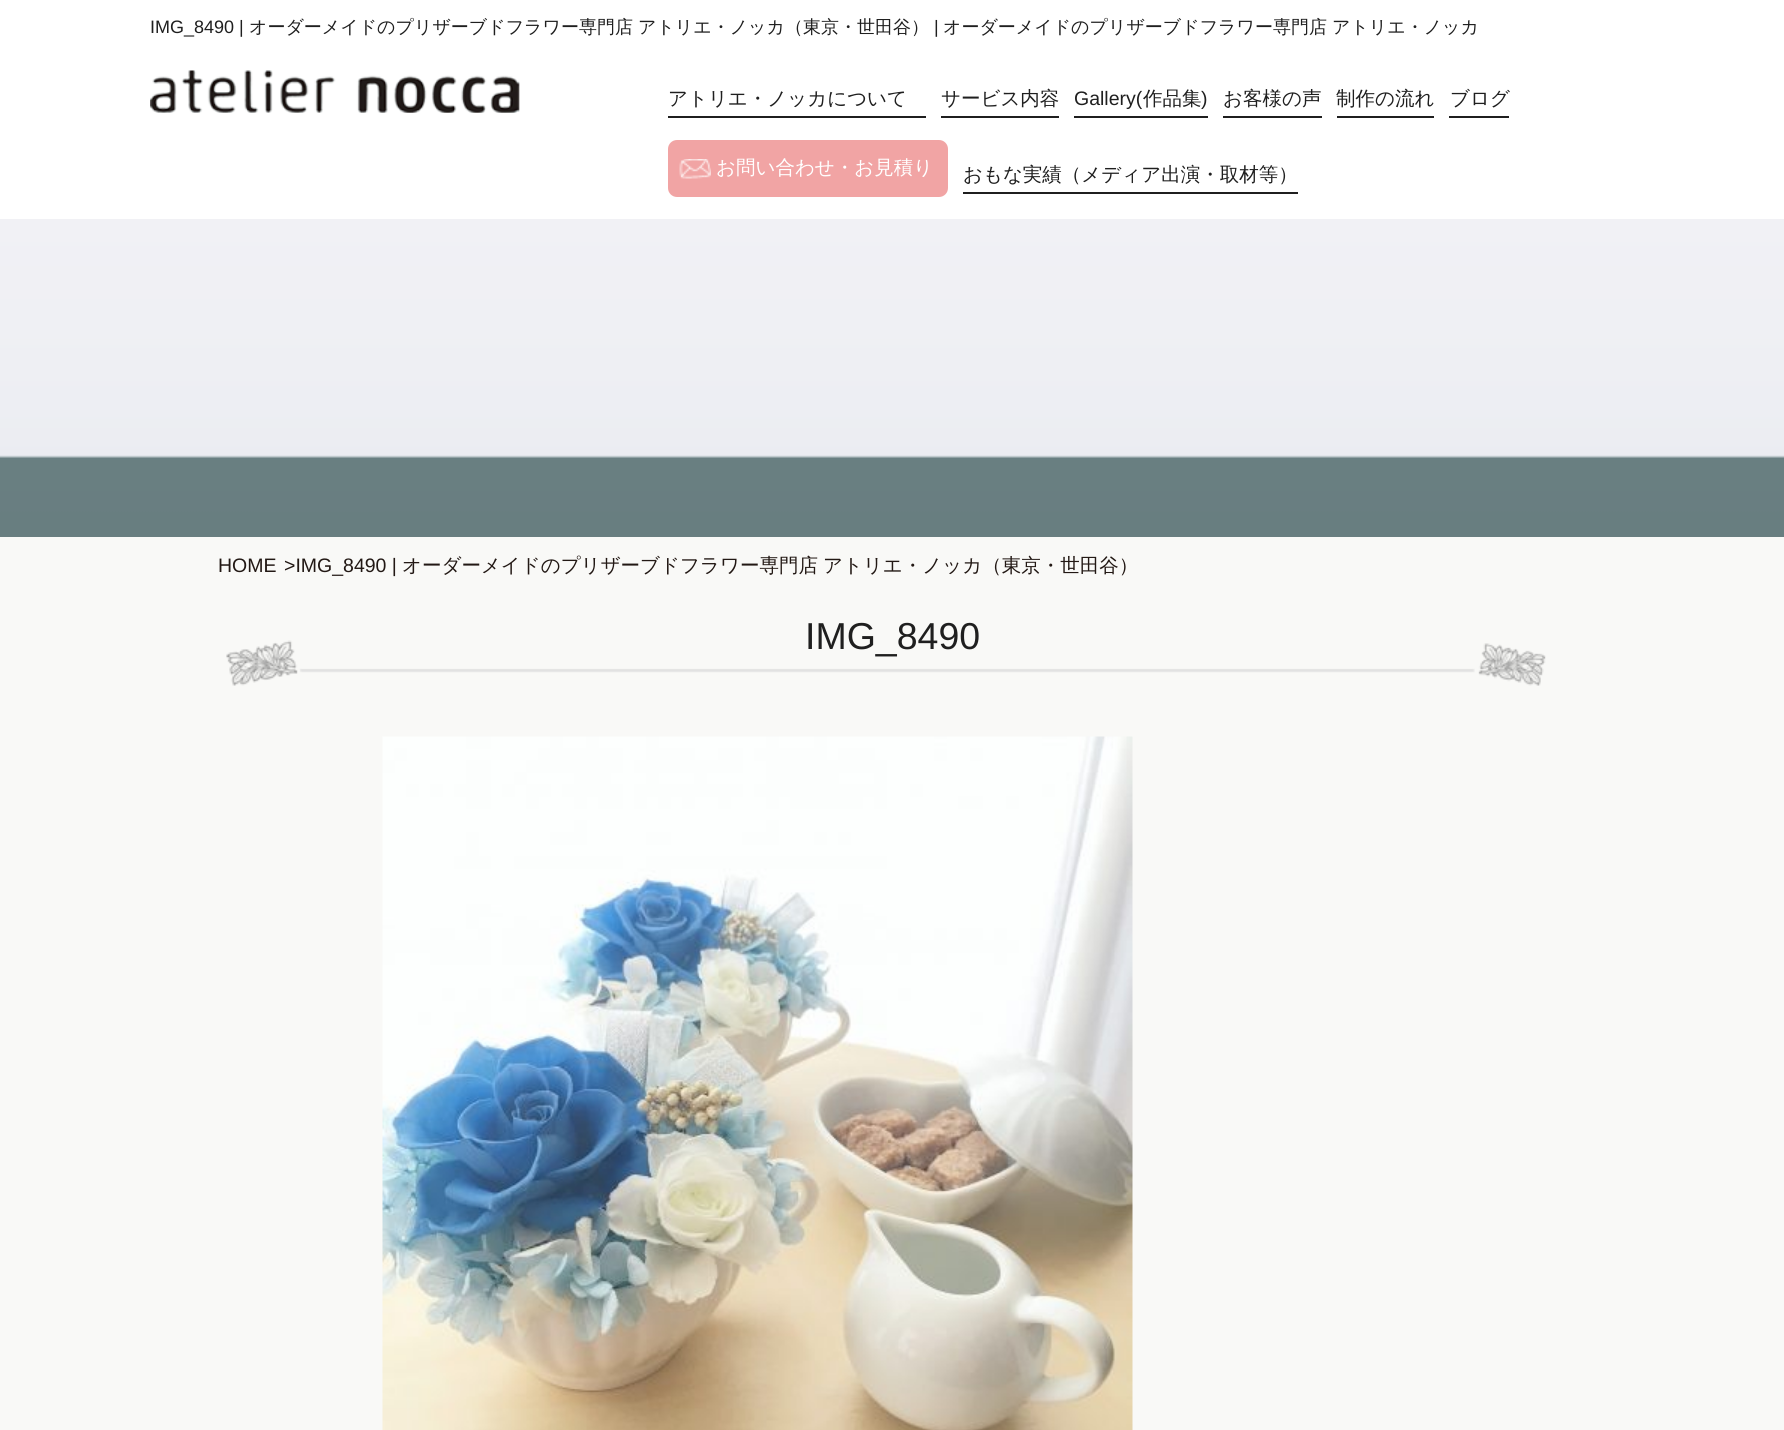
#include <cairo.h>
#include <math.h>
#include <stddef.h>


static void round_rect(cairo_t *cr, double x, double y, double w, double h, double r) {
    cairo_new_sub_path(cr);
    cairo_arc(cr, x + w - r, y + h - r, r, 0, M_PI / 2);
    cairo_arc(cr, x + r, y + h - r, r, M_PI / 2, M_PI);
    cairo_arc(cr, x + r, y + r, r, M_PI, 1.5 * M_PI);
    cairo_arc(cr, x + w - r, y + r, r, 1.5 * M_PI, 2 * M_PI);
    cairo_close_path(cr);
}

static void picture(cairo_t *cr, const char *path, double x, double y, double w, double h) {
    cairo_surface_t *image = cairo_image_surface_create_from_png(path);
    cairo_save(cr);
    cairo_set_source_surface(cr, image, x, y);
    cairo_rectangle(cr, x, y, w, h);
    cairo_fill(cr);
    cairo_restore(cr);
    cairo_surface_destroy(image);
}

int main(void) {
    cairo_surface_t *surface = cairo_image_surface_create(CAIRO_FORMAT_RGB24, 1784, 1430);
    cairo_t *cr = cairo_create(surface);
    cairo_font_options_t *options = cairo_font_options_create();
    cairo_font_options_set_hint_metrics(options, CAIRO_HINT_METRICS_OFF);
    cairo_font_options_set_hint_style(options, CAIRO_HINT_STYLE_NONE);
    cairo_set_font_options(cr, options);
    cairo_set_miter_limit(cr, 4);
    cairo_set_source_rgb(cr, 0.976, 0.976, 0.965);
    cairo_paint(cr);
    cairo_set_source_rgb(cr, 1, 1, 1);
    cairo_rectangle(cr, 0, 0, 1784, 537);
    cairo_fill(cr);
    cairo_select_font_face(cr, "Liberation Sans", CAIRO_FONT_SLANT_NORMAL, CAIRO_FONT_WEIGHT_NORMAL);
    cairo_set_font_size(cr, 18);
    cairo_set_source_rgb(cr, 0.122, 0.122, 0.122);
    cairo_move_to(cr, 150, 33);
    cairo_show_text(cr, "IMG_8490 |");
    cairo_select_font_face(cr, "WenQuanYi Zen Hei Medium", CAIRO_FONT_SLANT_NORMAL, CAIRO_FONT_WEIGHT_NORMAL);
    cairo_move_to(cr, 249, 33);
    cairo_show_text(cr, "オーダーメイドのプリザーブドフラワー専門店");
    cairo_move_to(cr, 638, 33);
    cairo_show_text(cr, "アトリエ・ノッカ（東京・世田谷）");
    cairo_select_font_face(cr, "Liberation Sans", CAIRO_FONT_SLANT_NORMAL, CAIRO_FONT_WEIGHT_NORMAL);
    cairo_move_to(cr, 934, 33);
    cairo_show_text(cr, "|");
    cairo_select_font_face(cr, "WenQuanYi Zen Hei Medium", CAIRO_FONT_SLANT_NORMAL, CAIRO_FONT_WEIGHT_NORMAL);
    cairo_move_to(cr, 943, 33);
    cairo_show_text(cr, "オーダーメイドのプリザーブドフラワー専門店");
    cairo_move_to(cr, 1332, 33);
    cairo_show_text(cr, "アトリエ・ノッカ");
    picture(cr, "img1.png", 150, 70, 370, 43);
    cairo_rectangle(cr, 668, 116, 258, 2);
    cairo_fill(cr);
    cairo_set_font_size(cr, 19.5);
    cairo_move_to(cr, 668, 105);
    cairo_show_text(cr, "アトリエ・ノッカについて");
    cairo_rectangle(cr, 941, 116, 118, 2);
    cairo_fill(cr);
    cairo_move_to(cr, 941, 105);
    cairo_show_text(cr, "サービス内容");
    cairo_rectangle(cr, 1074, 116, 134, 2);
    cairo_fill(cr);
    cairo_select_font_face(cr, "Liberation Sans", CAIRO_FONT_SLANT_NORMAL, CAIRO_FONT_WEIGHT_NORMAL);
    cairo_move_to(cr, 1074, 105);
    cairo_show_text(cr, "Gallery(");
    cairo_select_font_face(cr, "WenQuanYi Zen Hei Medium", CAIRO_FONT_SLANT_NORMAL, CAIRO_FONT_WEIGHT_NORMAL);
    cairo_move_to(cr, 1143, 105);
    cairo_show_text(cr, "作品集");
    cairo_select_font_face(cr, "Liberation Sans", CAIRO_FONT_SLANT_NORMAL, CAIRO_FONT_WEIGHT_NORMAL);
    cairo_move_to(cr, 1201, 105);
    cairo_show_text(cr, ")");
    cairo_rectangle(cr, 1223, 116, 99, 2);
    cairo_fill(cr);
    cairo_select_font_face(cr, "WenQuanYi Zen Hei Medium", CAIRO_FONT_SLANT_NORMAL, CAIRO_FONT_WEIGHT_NORMAL);
    cairo_move_to(cr, 1223, 105);
    cairo_show_text(cr, "お客様の声");
    cairo_rectangle(cr, 1337, 116, 97, 2);
    cairo_fill(cr);
    cairo_move_to(cr, 1336, 105);
    cairo_show_text(cr, "制作の流れ");
    cairo_rectangle(cr, 1449, 116, 60, 2);
    cairo_fill(cr);
    cairo_move_to(cr, 1450, 105);
    cairo_show_text(cr, "ブログ");
    cairo_set_source_rgb(cr, 0.945, 0.643, 0.643);
    round_rect(cr, 668, 140, 280, 57, 9);
    cairo_fill(cr);
    picture(cr, "img2.png", 679, 159, 32, 20);
    cairo_set_source_rgb(cr, 1, 1, 1);
    cairo_move_to(cr, 716, 174);
    cairo_show_text(cr, "お問い合わせ・お見積り");
    cairo_set_source_rgb(cr, 0.122, 0.122, 0.122);
    cairo_rectangle(cr, 963, 192, 335, 2);
    cairo_fill(cr);
    cairo_move_to(cr, 963, 181);
    cairo_show_text(cr, "おもな実績（メディア出演・取材等）");
    picture(cr, "img3.png", 0, 219, 1784, 318);
    cairo_select_font_face(cr, "Liberation Sans", CAIRO_FONT_SLANT_NORMAL, CAIRO_FONT_WEIGHT_NORMAL);
    cairo_set_source_rgb(cr, 0.133, 0.094, 0.082);
    cairo_move_to(cr, 218, 572);
    cairo_show_text(cr, "HOME");
    cairo_move_to(cr, 284, 572);
    cairo_show_text(cr, ">IMG_8490 |");
    cairo_select_font_face(cr, "WenQuanYi Zen Hei Medium", CAIRO_FONT_SLANT_NORMAL, CAIRO_FONT_WEIGHT_NORMAL);
    cairo_move_to(cr, 402, 572);
    cairo_show_text(cr, "オーダーメイドのプリザーブドフラワー専門店");
    cairo_move_to(cr, 823, 572);
    cairo_show_text(cr, "アトリエ・ノッカ（東京・世田谷）");
    picture(cr, "img4.png", 226, 640, 1320, 46);
    cairo_select_font_face(cr, "Liberation Sans", CAIRO_FONT_SLANT_NORMAL, CAIRO_FONT_WEIGHT_NORMAL);
    cairo_set_font_size(cr, 37.5);
    cairo_set_source_rgb(cr, 0.122, 0.122, 0.122);
    cairo_move_to(cr, 805, 649);
    cairo_show_text(cr, "IMG_8490");
    picture(cr, "img5.png", 382, 736, 751, 694);
    cairo_surface_write_to_png(surface, "page.png");
    cairo_font_options_destroy(options);
    cairo_destroy(cr);
    cairo_surface_destroy(surface);
    return 0;
}
